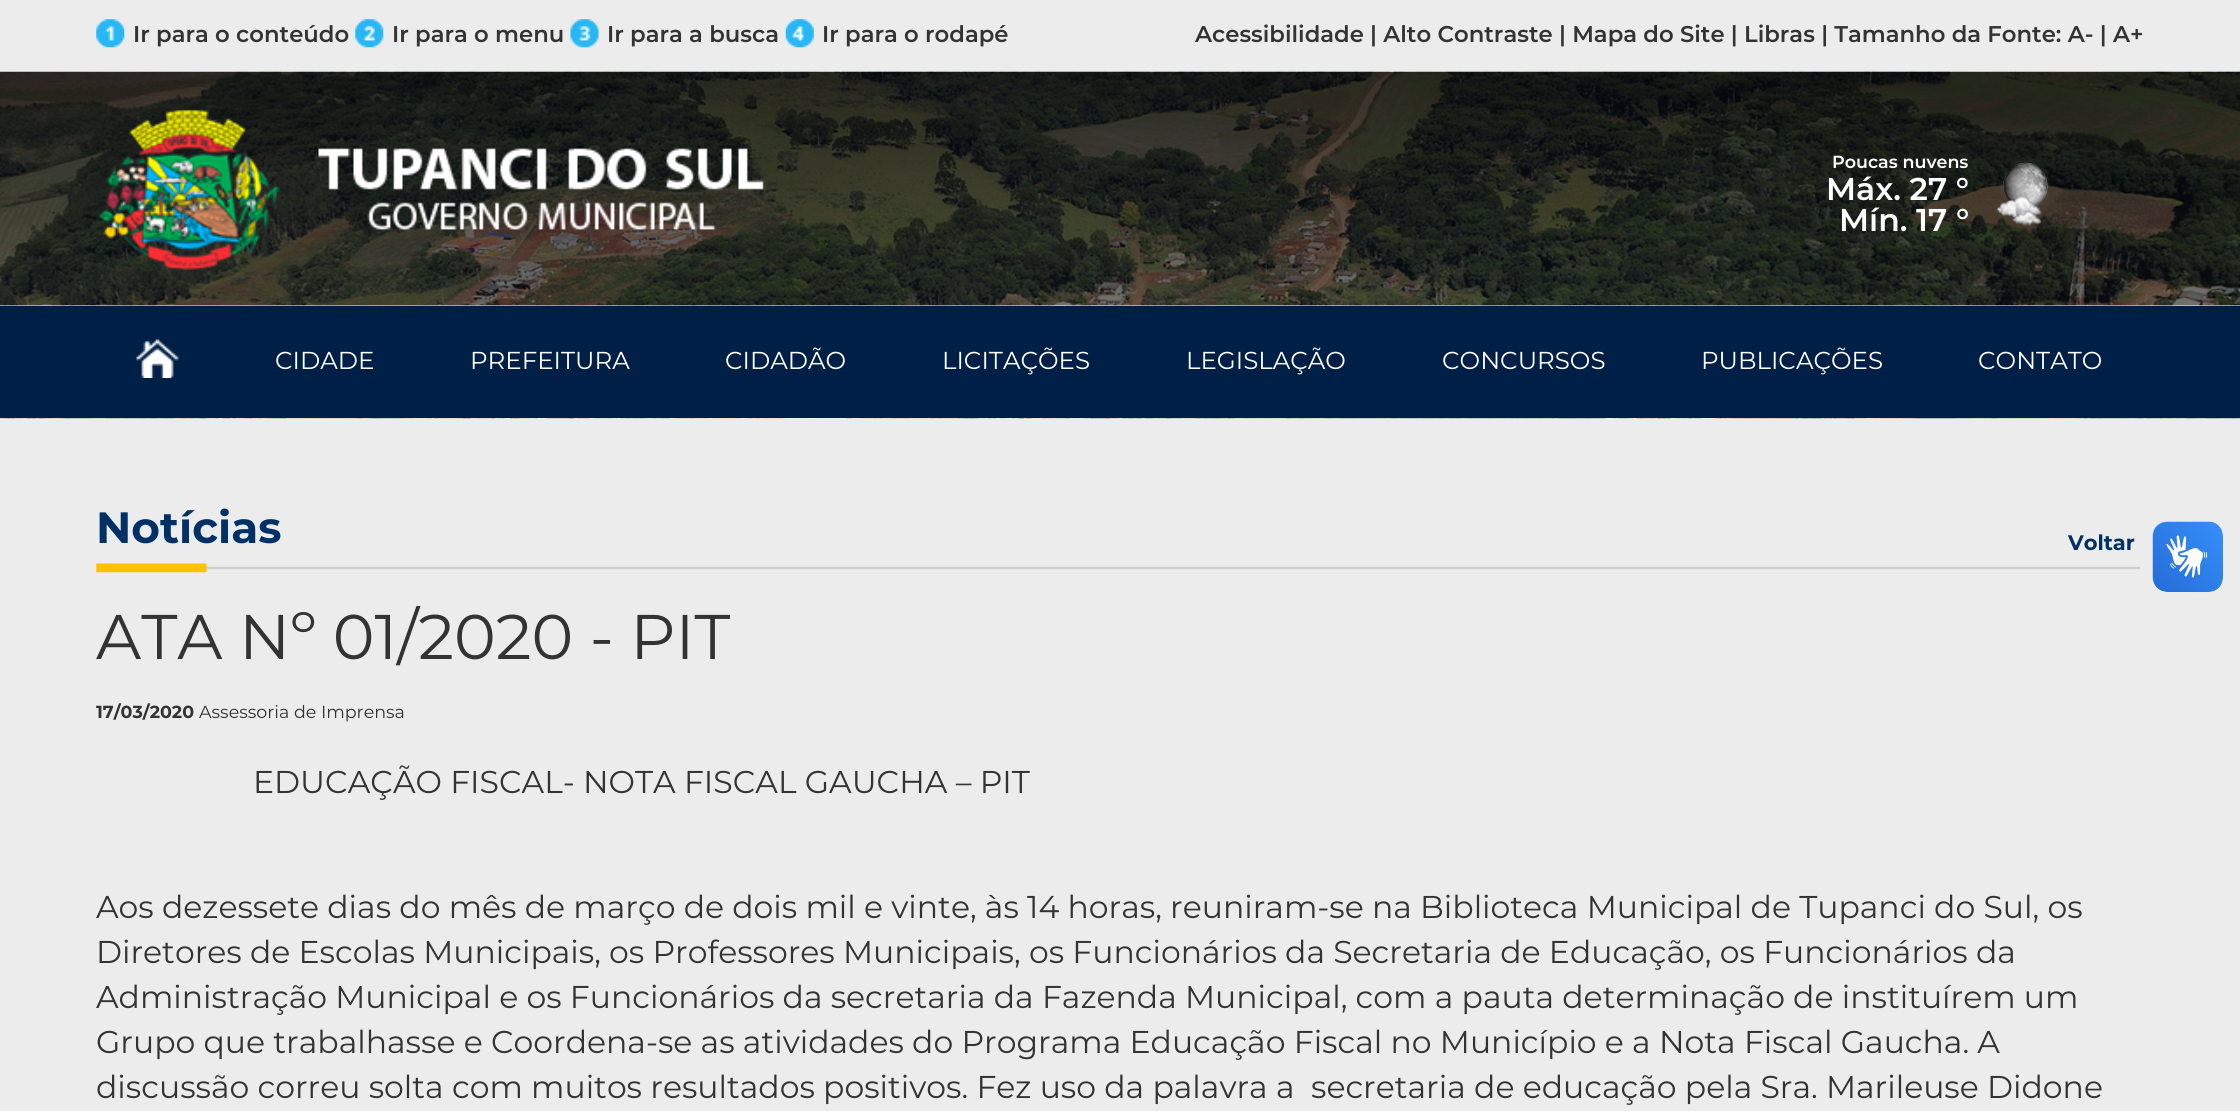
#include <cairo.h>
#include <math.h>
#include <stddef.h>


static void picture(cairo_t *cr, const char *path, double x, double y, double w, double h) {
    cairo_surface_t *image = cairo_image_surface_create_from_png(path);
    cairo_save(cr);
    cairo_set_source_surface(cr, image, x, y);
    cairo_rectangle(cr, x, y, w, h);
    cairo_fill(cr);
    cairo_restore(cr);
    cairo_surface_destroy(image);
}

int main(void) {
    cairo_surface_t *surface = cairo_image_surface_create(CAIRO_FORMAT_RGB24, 2240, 1111);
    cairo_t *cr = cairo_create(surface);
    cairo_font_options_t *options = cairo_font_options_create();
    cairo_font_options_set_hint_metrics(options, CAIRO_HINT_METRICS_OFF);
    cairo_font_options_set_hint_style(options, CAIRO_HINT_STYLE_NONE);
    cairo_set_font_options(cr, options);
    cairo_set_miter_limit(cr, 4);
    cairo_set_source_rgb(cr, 0.925, 0.925, 0.925);
    cairo_paint(cr);
    picture(cr, "img1.png", 96, 19, 29, 29);
    cairo_select_font_face(cr, "Montserrat SemiBold", CAIRO_FONT_SLANT_NORMAL, CAIRO_FONT_WEIGHT_NORMAL);
    cairo_set_font_size(cr, 22.75);
    cairo_set_source_rgb(cr, 0.2, 0.2, 0.2);
    cairo_move_to(cr, 133, 42);
    cairo_show_text(cr, "Ir para o conteúdo");
    picture(cr, "img2.png", 355, 19, 29, 29);
    cairo_move_to(cr, 392, 42);
    cairo_show_text(cr, "Ir para o menu");
    picture(cr, "img3.png", 570, 19, 29, 29);
    cairo_move_to(cr, 607, 42);
    cairo_show_text(cr, "Ir para a busca");
    picture(cr, "img4.png", 785, 19, 29, 29);
    cairo_move_to(cr, 822, 42);
    cairo_show_text(cr, "Ir para o rodapé");
    cairo_move_to(cr, 1195, 42);
    cairo_show_text(cr, "Acessibilidade | Alto Contraste | Mapa do Site | Libras | Tamanho da Fonte: A- | A+");
    picture(cr, "img5.png", 0, 71, 2240, 348);
    picture(cr, "img6.png", 0, 71, 2240, 235);
    cairo_set_source_rgba(cr, 1, 1, 1, 0.5);
    cairo_rectangle(cr, 0, 305, 2240, 1);
    cairo_fill(cr);
    picture(cr, "img7.png", 96, 109, 668, 161);
    cairo_set_font_size(cr, 17.5);
    cairo_set_source_rgb(cr, 1, 1, 1);
    cairo_move_to(cr, 1832, 168);
    cairo_show_text(cr, "Poucas nuvens");
    cairo_set_font_size(cr, 31.5);
    cairo_move_to(cr, 1826, 200);
    cairo_show_text(cr, "Máx. 27 °");
    cairo_move_to(cr, 1839, 231);
    cairo_show_text(cr, "Mín. 17 °");
    picture(cr, "img8.png", 1996, 160, 53, 66);
    cairo_set_source_rgb(cr, 0, 0.122, 0.275);
    cairo_rectangle(cr, 0, 306, 2240, 112);
    cairo_fill(cr);
    picture(cr, "img9.png", 136, 339, 43, 39);
    cairo_select_font_face(cr, "Montserrat", CAIRO_FONT_SLANT_NORMAL, CAIRO_FONT_WEIGHT_NORMAL);
    cairo_set_font_size(cr, 24.5);
    cairo_set_source_rgb(cr, 1, 1, 1);
    cairo_move_to(cr, 275, 369);
    cairo_show_text(cr, "CIDADE");
    cairo_move_to(cr, 470, 369);
    cairo_show_text(cr, "PREFEITURA");
    cairo_move_to(cr, 725, 369);
    cairo_show_text(cr, "CIDADÃO");
    cairo_move_to(cr, 942, 369);
    cairo_show_text(cr, "LICITAÇÕES");
    cairo_move_to(cr, 1186, 369);
    cairo_show_text(cr, "LEGISLAÇÃO");
    cairo_move_to(cr, 1442, 369);
    cairo_show_text(cr, "CONCURSOS");
    cairo_move_to(cr, 1701, 369);
    cairo_show_text(cr, "PUBLICAÇÕES");
    cairo_move_to(cr, 1978, 369);
    cairo_show_text(cr, "CONTATO");
    picture(cr, "img10.png", 96, 563, 2045, 10);
    cairo_select_font_face(cr, "Montserrat", CAIRO_FONT_SLANT_NORMAL, CAIRO_FONT_WEIGHT_BOLD);
    cairo_set_font_size(cr, 43.75);
    cairo_set_source_rgb(cr, 0, 0.188, 0.4);
    cairo_move_to(cr, 96, 543);
    cairo_show_text(cr, "Notícias");
    cairo_set_font_size(cr, 21);
    cairo_move_to(cr, 2068, 550);
    cairo_show_text(cr, "Voltar");
    cairo_select_font_face(cr, "Montserrat", CAIRO_FONT_SLANT_NORMAL, CAIRO_FONT_WEIGHT_NORMAL);
    cairo_set_font_size(cr, 63);
    cairo_set_source_rgb(cr, 0.2, 0.2, 0.2);
    cairo_move_to(cr, 96, 659);
    cairo_show_text(cr, "ATA Nº 01/2020 - PIT");
    cairo_select_font_face(cr, "Montserrat", CAIRO_FONT_SLANT_NORMAL, CAIRO_FONT_WEIGHT_BOLD);
    cairo_set_font_size(cr, 17.5);
    cairo_move_to(cr, 96, 718);
    cairo_show_text(cr, "17/03/2020");
    cairo_select_font_face(cr, "Montserrat", CAIRO_FONT_SLANT_NORMAL, CAIRO_FONT_WEIGHT_NORMAL);
    cairo_move_to(cr, 199, 718);
    cairo_show_text(cr, "Assessoria de Imprensa");
    cairo_set_font_size(cr, 31.5);
    cairo_move_to(cr, 253, 793);
    cairo_show_text(cr, "EDUCAÇÃO FISCAL- NOTA FISCAL GAUCHA – PIT");
    cairo_move_to(cr, 96, 918);
    cairo_show_text(cr, "Aos dezessete dias do mês de março de dois mil e vinte, às 14 horas, reuniram-se na Biblioteca Municipal de Tupanci do Sul, os");
    cairo_move_to(cr, 96, 963);
    cairo_show_text(cr, "Diretores de Escolas Municipais, os Professores Municipais, os Funcionários da Secretaria de Educação, os Funcionários da");
    cairo_move_to(cr, 96, 1008);
    cairo_show_text(cr, "Administração Municipal e os Funcionários da secretaria da Fazenda Municipal, com a pauta determinação de instituírem um");
    cairo_move_to(cr, 96, 1053);
    cairo_show_text(cr, "Grupo que trabalhasse e Coordena-se as atividades do Programa Educação Fiscal no Município e a Nota Fiscal Gaucha. A");
    cairo_move_to(cr, 96, 1098);
    cairo_show_text(cr, "discussão correu solta com muitos resultados positivos. Fez uso da palavra a  secretaria de educação pela Sra. Marileuse Didone");
    picture(cr, "img11.png", 2152, 521, 71, 71);
    picture(cr, "img12.png", 2153, 522, 70, 70);
    cairo_surface_write_to_png(surface, "page.png");
    cairo_font_options_destroy(options);
    cairo_destroy(cr);
    cairo_surface_destroy(surface);
    return 0;
}
